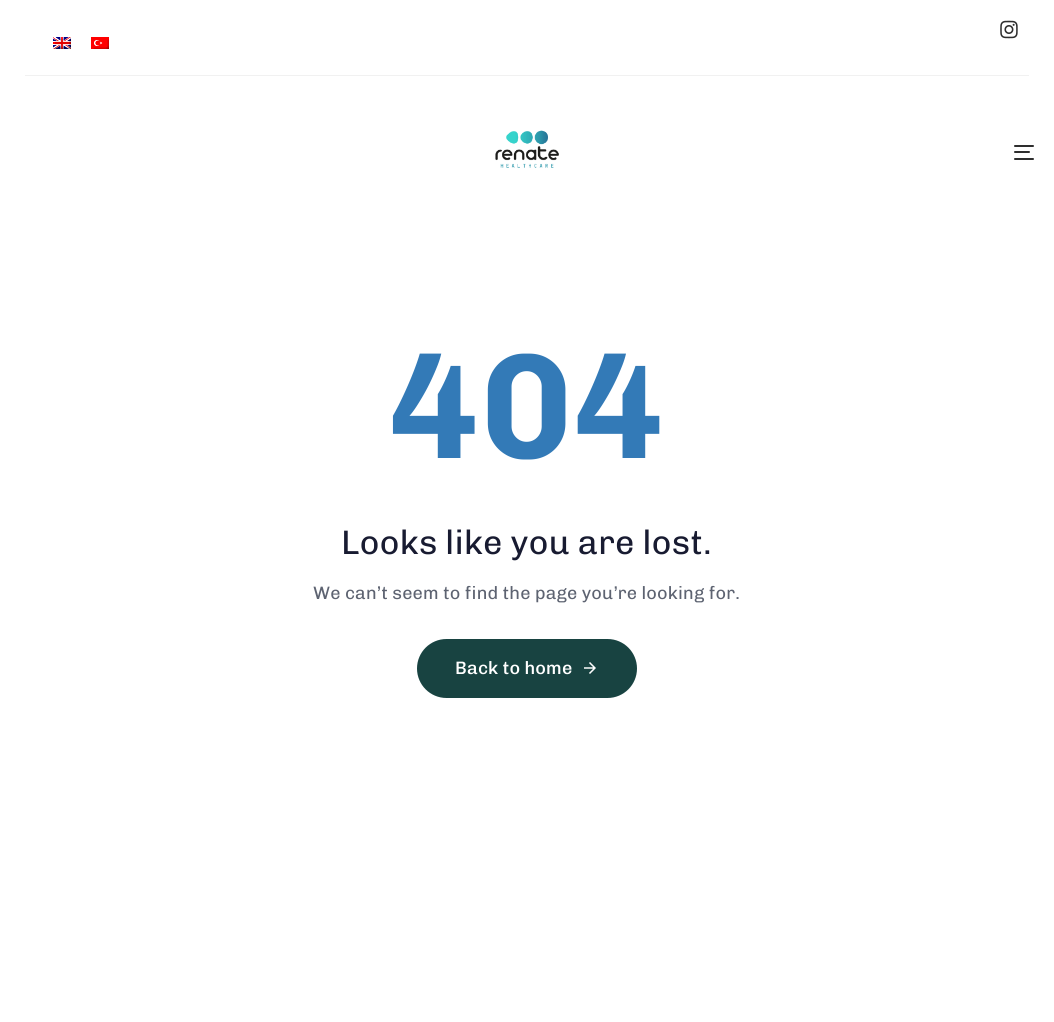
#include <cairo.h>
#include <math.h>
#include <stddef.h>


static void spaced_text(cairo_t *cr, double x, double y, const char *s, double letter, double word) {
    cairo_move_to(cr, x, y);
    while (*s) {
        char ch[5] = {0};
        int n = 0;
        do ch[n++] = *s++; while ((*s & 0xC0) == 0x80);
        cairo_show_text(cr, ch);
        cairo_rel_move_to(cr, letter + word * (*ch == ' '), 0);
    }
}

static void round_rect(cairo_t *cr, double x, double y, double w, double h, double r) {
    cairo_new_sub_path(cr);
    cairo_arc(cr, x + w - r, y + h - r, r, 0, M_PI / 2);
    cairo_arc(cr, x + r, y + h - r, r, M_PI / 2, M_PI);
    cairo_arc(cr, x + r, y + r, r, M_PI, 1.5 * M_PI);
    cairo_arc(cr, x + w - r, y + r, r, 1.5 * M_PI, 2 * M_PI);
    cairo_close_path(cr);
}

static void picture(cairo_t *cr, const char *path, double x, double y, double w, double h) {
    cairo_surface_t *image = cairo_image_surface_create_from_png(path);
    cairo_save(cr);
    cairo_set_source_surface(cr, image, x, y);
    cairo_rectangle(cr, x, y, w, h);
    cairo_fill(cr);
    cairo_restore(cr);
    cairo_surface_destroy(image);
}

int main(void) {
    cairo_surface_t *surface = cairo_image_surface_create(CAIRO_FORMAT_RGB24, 1054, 1022);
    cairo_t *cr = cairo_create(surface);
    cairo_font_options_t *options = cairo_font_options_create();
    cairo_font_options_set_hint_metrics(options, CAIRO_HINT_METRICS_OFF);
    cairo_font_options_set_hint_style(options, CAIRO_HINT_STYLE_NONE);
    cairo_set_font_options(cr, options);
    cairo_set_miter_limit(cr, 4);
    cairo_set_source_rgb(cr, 1, 1, 1);
    cairo_paint(cr);
    cairo_set_source_rgb(cr, 0.945, 0.945, 0.945);
    cairo_rectangle(cr, 25, 75, 1004, 1);
    cairo_fill(cr);
    picture(cr, "img1.png", 1000, 20, 18, 19);
    picture(cr, "img2.png", 53, 37, 18, 12);
    picture(cr, "img3.png", 91, 37, 18, 12);
    picture(cr, "img4.png", 495, 130, 64, 38);
    cairo_set_source_rgb(cr, 0.18, 0.18, 0.18);
    round_rect(cr, 1014, 145, 20, 2, 1);
    cairo_fill(cr);
    round_rect(cr, 1014, 151, 16, 2, 1);
    cairo_fill(cr);
    round_rect(cr, 1014, 158, 20, 2, 1);
    cairo_fill(cr);
    cairo_select_font_face(cr, "Chivo", CAIRO_FONT_SLANT_NORMAL, CAIRO_FONT_WEIGHT_BOLD);
    cairo_set_font_size(cr, 150);
    cairo_set_source_rgb(cr, 0.2, 0.478, 0.718);
    spaced_text(cr, 388, 458, "404", 0.15, 0);
    cairo_select_font_face(cr, "Chivo", CAIRO_FONT_SLANT_NORMAL, CAIRO_FONT_WEIGHT_NORMAL);
    cairo_set_font_size(cr, 34);
    cairo_set_source_rgb(cr, 0.094, 0.106, 0.192);
    spaced_text(cr, 341, 554, "Looks like you are lost.", 0.15, 0);
    cairo_set_font_size(cr, 18);
    cairo_set_source_rgb(cr, 0.365, 0.388, 0.443);
    spaced_text(cr, 313, 599, "We can’t seem to find the page you’re looking for.", 0.15, 0);
    cairo_set_source_rgb(cr, 0.094, 0.263, 0.255);
    round_rect(cr, 417, 639, 220, 59, 29.5);
    cairo_fill(cr);
    cairo_select_font_face(cr, "Chivo Medium", CAIRO_FONT_SLANT_NORMAL, CAIRO_FONT_WEIGHT_NORMAL);
    cairo_set_source_rgb(cr, 1, 1, 1);
    spaced_text(cr, 455, 674, "Back to home", 0.15, 0);
    picture(cr, "img5.png", 584, 662, 12, 12);
    cairo_surface_write_to_png(surface, "page.png");
    cairo_font_options_destroy(options);
    cairo_destroy(cr);
    cairo_surface_destroy(surface);
    return 0;
}
